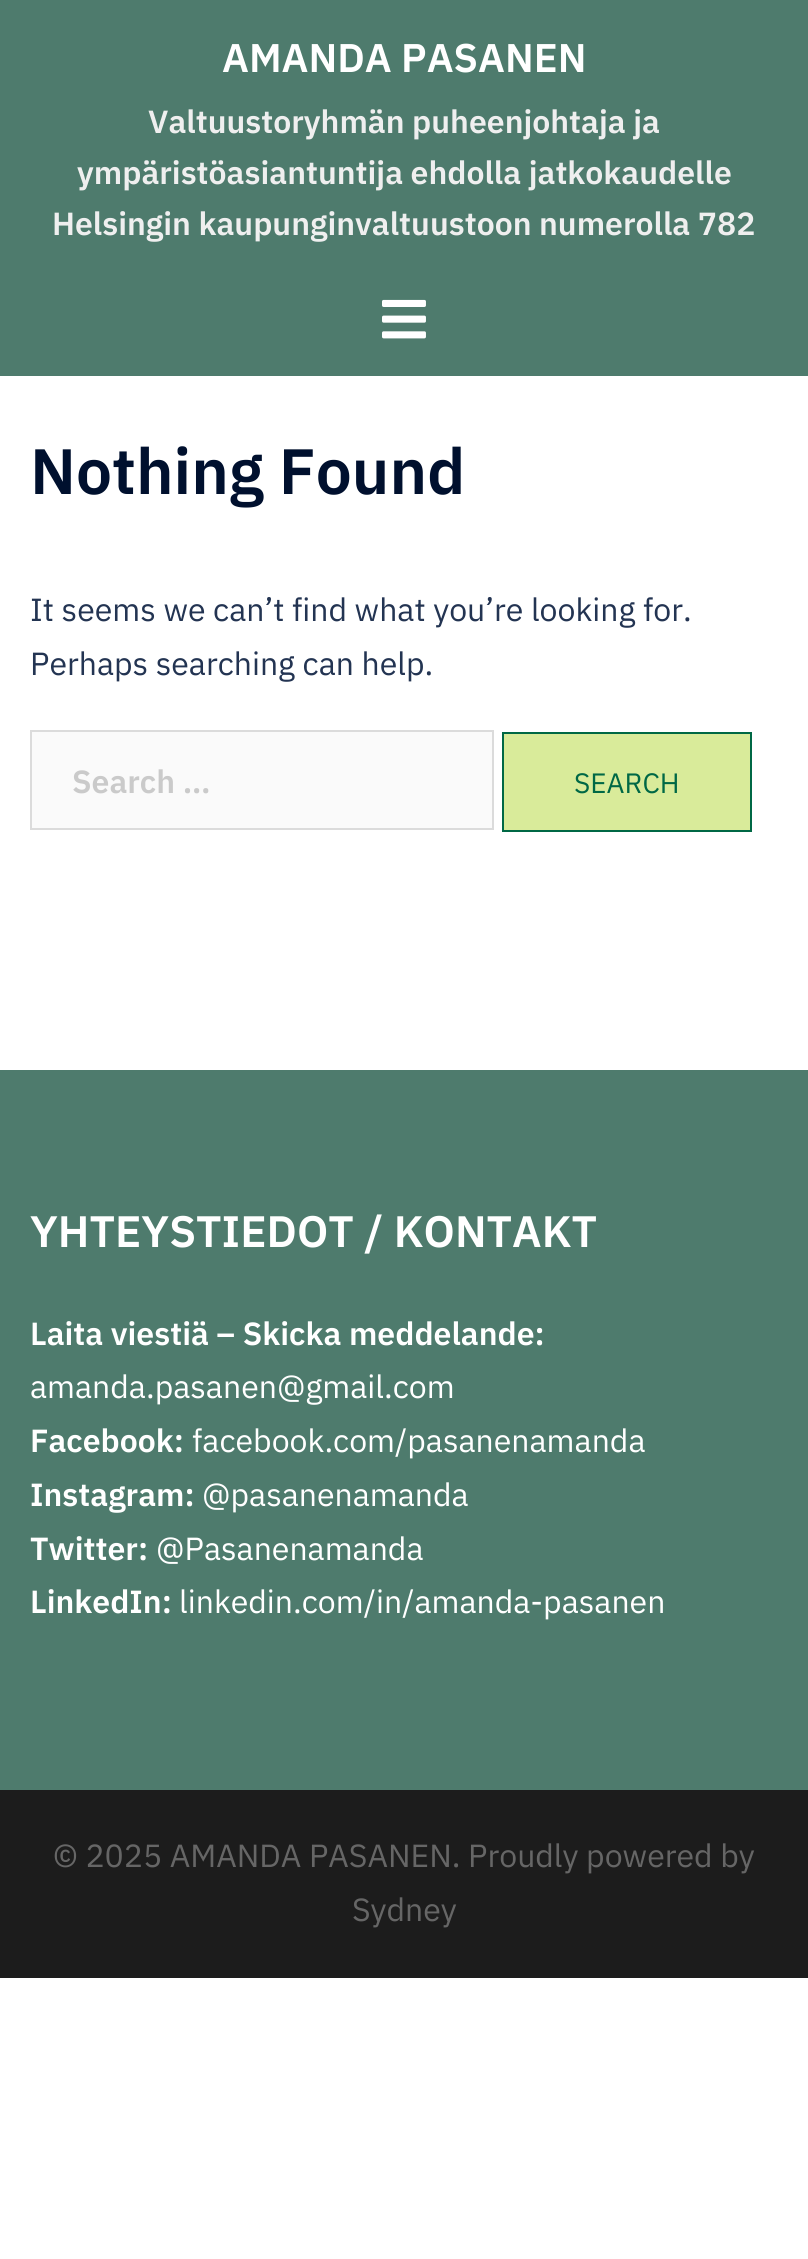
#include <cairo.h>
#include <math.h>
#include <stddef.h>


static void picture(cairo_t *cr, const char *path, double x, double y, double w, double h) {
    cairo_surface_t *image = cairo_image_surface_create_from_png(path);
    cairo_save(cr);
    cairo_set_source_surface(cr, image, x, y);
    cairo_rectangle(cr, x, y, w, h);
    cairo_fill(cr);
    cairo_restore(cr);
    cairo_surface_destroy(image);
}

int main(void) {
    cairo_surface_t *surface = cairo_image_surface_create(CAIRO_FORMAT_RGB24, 808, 2259);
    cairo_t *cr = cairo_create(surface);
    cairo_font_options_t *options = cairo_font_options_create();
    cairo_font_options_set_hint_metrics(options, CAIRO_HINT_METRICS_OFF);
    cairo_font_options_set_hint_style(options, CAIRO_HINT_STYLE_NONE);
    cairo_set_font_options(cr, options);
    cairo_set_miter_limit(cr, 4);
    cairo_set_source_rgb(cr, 1, 1, 1);
    cairo_paint(cr);
    cairo_set_source_rgb(cr, 0.306, 0.482, 0.427);
    cairo_rectangle(cr, 0, 0, 808, 376);
    cairo_fill(cr);
    cairo_select_font_face(cr, "IBM Plex Sans SemiBold", CAIRO_FONT_SLANT_NORMAL, CAIRO_FONT_WEIGHT_NORMAL);
    cairo_set_font_size(cr, 40);
    cairo_set_source_rgb(cr, 1, 1, 1);
    cairo_move_to(cr, 222, 72);
    cairo_show_text(cr, "AMANDA PASANEN");
    cairo_set_font_size(cr, 32);
    cairo_set_source_rgb(cr, 0.937, 0.937, 0.937);
    cairo_move_to(cr, 148, 133);
    cairo_show_text(cr, "Valtuustoryhmän puheenjohtaja ja");
    cairo_move_to(cr, 77, 184);
    cairo_show_text(cr, "ympäristöasiantuntija ehdolla jatkokaudelle");
    cairo_move_to(cr, 52, 235);
    cairo_show_text(cr, "Helsingin kaupunginvaltuustoon numerolla 782");
    picture(cr, "img1.png", 382, 299, 44, 40);
    cairo_set_font_size(cr, 64);
    cairo_set_source_rgb(cr, 0, 0.063, 0.18);
    cairo_move_to(cr, 30, 494);
    cairo_show_text(cr, "Nothing Found");
    cairo_select_font_face(cr, "IBM Plex Sans", CAIRO_FONT_SLANT_NORMAL, CAIRO_FONT_WEIGHT_NORMAL);
    cairo_set_font_size(cr, 32);
    cairo_set_source_rgb(cr, 0.137, 0.204, 0.322);
    cairo_move_to(cr, 30, 621);
    cairo_show_text(cr, "It seems we can’t find what you’re looking for.");
    cairo_move_to(cr, 30, 675);
    cairo_show_text(cr, "Perhaps searching can help.");
    cairo_set_source_rgb(cr, 0.98, 0.98, 0.98);
    cairo_rectangle(cr, 31, 731, 462, 98);
    cairo_fill_preserve(cr);
    cairo_set_source_rgb(cr, 0.859, 0.859, 0.859);
    cairo_stroke(cr);
    cairo_select_font_face(cr, "IBM Plex Sans SemiBold", CAIRO_FONT_SLANT_NORMAL, CAIRO_FONT_WEIGHT_NORMAL);
    cairo_set_source_rgb(cr, 0.792, 0.792, 0.792);
    cairo_move_to(cr, 72, 793);
    cairo_show_text(cr, "Search …");
    cairo_set_source_rgb(cr, 0.851, 0.918, 0.604);
    cairo_rectangle(cr, 503, 733, 248, 98);
    cairo_fill_preserve(cr);
    cairo_set_source_rgb(cr, 0, 0.408, 0.271);
    cairo_stroke(cr);
    cairo_select_font_face(cr, "IBM Plex Sans", CAIRO_FONT_SLANT_NORMAL, CAIRO_FONT_WEIGHT_NORMAL);
    cairo_set_font_size(cr, 28);
    cairo_move_to(cr, 574, 793);
    cairo_show_text(cr, "SEARCH");
    cairo_set_source_rgb(cr, 0.306, 0.482, 0.427);
    cairo_rectangle(cr, 0, 1070, 808, 720);
    cairo_fill(cr);
    cairo_select_font_face(cr, "IBM Plex Sans SemiBold", CAIRO_FONT_SLANT_NORMAL, CAIRO_FONT_WEIGHT_NORMAL);
    cairo_set_font_size(cr, 44);
    cairo_set_source_rgb(cr, 1, 1, 1);
    cairo_move_to(cr, 30, 1247);
    cairo_show_text(cr, "YHTEYSTIEDOT / KONTAKT");
    cairo_set_font_size(cr, 32);
    cairo_move_to(cr, 30, 1345);
    cairo_show_text(cr, "Laita viestiä – Skicka meddelande:");
    cairo_select_font_face(cr, "IBM Plex Sans", CAIRO_FONT_SLANT_NORMAL, CAIRO_FONT_WEIGHT_NORMAL);
    cairo_move_to(cr, 30, 1398);
    cairo_show_text(cr, "amanda.pasanen@gmail.com");
    cairo_select_font_face(cr, "IBM Plex Sans SemiBold", CAIRO_FONT_SLANT_NORMAL, CAIRO_FONT_WEIGHT_NORMAL);
    cairo_move_to(cr, 30, 1452);
    cairo_show_text(cr, "Facebook:");
    cairo_select_font_face(cr, "IBM Plex Sans", CAIRO_FONT_SLANT_NORMAL, CAIRO_FONT_WEIGHT_NORMAL);
    cairo_move_to(cr, 192, 1452);
    cairo_show_text(cr, "facebook.com/pasanenamanda");
    cairo_select_font_face(cr, "IBM Plex Sans SemiBold", CAIRO_FONT_SLANT_NORMAL, CAIRO_FONT_WEIGHT_NORMAL);
    cairo_move_to(cr, 30, 1506);
    cairo_show_text(cr, "Instagram:");
    cairo_select_font_face(cr, "IBM Plex Sans", CAIRO_FONT_SLANT_NORMAL, CAIRO_FONT_WEIGHT_NORMAL);
    cairo_move_to(cr, 202, 1506);
    cairo_show_text(cr, "@pasanenamanda");
    cairo_select_font_face(cr, "IBM Plex Sans SemiBold", CAIRO_FONT_SLANT_NORMAL, CAIRO_FONT_WEIGHT_NORMAL);
    cairo_move_to(cr, 30, 1560);
    cairo_show_text(cr, "Twitter:");
    cairo_select_font_face(cr, "IBM Plex Sans", CAIRO_FONT_SLANT_NORMAL, CAIRO_FONT_WEIGHT_NORMAL);
    cairo_move_to(cr, 156, 1560);
    cairo_show_text(cr, "@Pasanenamanda");
    cairo_select_font_face(cr, "IBM Plex Sans SemiBold", CAIRO_FONT_SLANT_NORMAL, CAIRO_FONT_WEIGHT_NORMAL);
    cairo_move_to(cr, 30, 1613);
    cairo_show_text(cr, "LinkedIn:");
    cairo_select_font_face(cr, "IBM Plex Sans", CAIRO_FONT_SLANT_NORMAL, CAIRO_FONT_WEIGHT_NORMAL);
    cairo_move_to(cr, 179, 1613);
    cairo_show_text(cr, "linkedin.com/in/amanda-pasanen");
    cairo_set_source_rgb(cr, 0.11, 0.11, 0.11);
    cairo_rectangle(cr, 0, 1790, 808, 188);
    cairo_fill(cr);
    cairo_set_source_rgb(cr, 0.4, 0.4, 0.4);
    cairo_move_to(cr, 53, 1867);
    cairo_show_text(cr, "© 2025 AMANDA PASANEN. Proudly powered by");
    cairo_move_to(cr, 352, 1921);
    cairo_show_text(cr, "Sydney");
    cairo_surface_write_to_png(surface, "page.png");
    cairo_font_options_destroy(options);
    cairo_destroy(cr);
    cairo_surface_destroy(surface);
    return 0;
}
